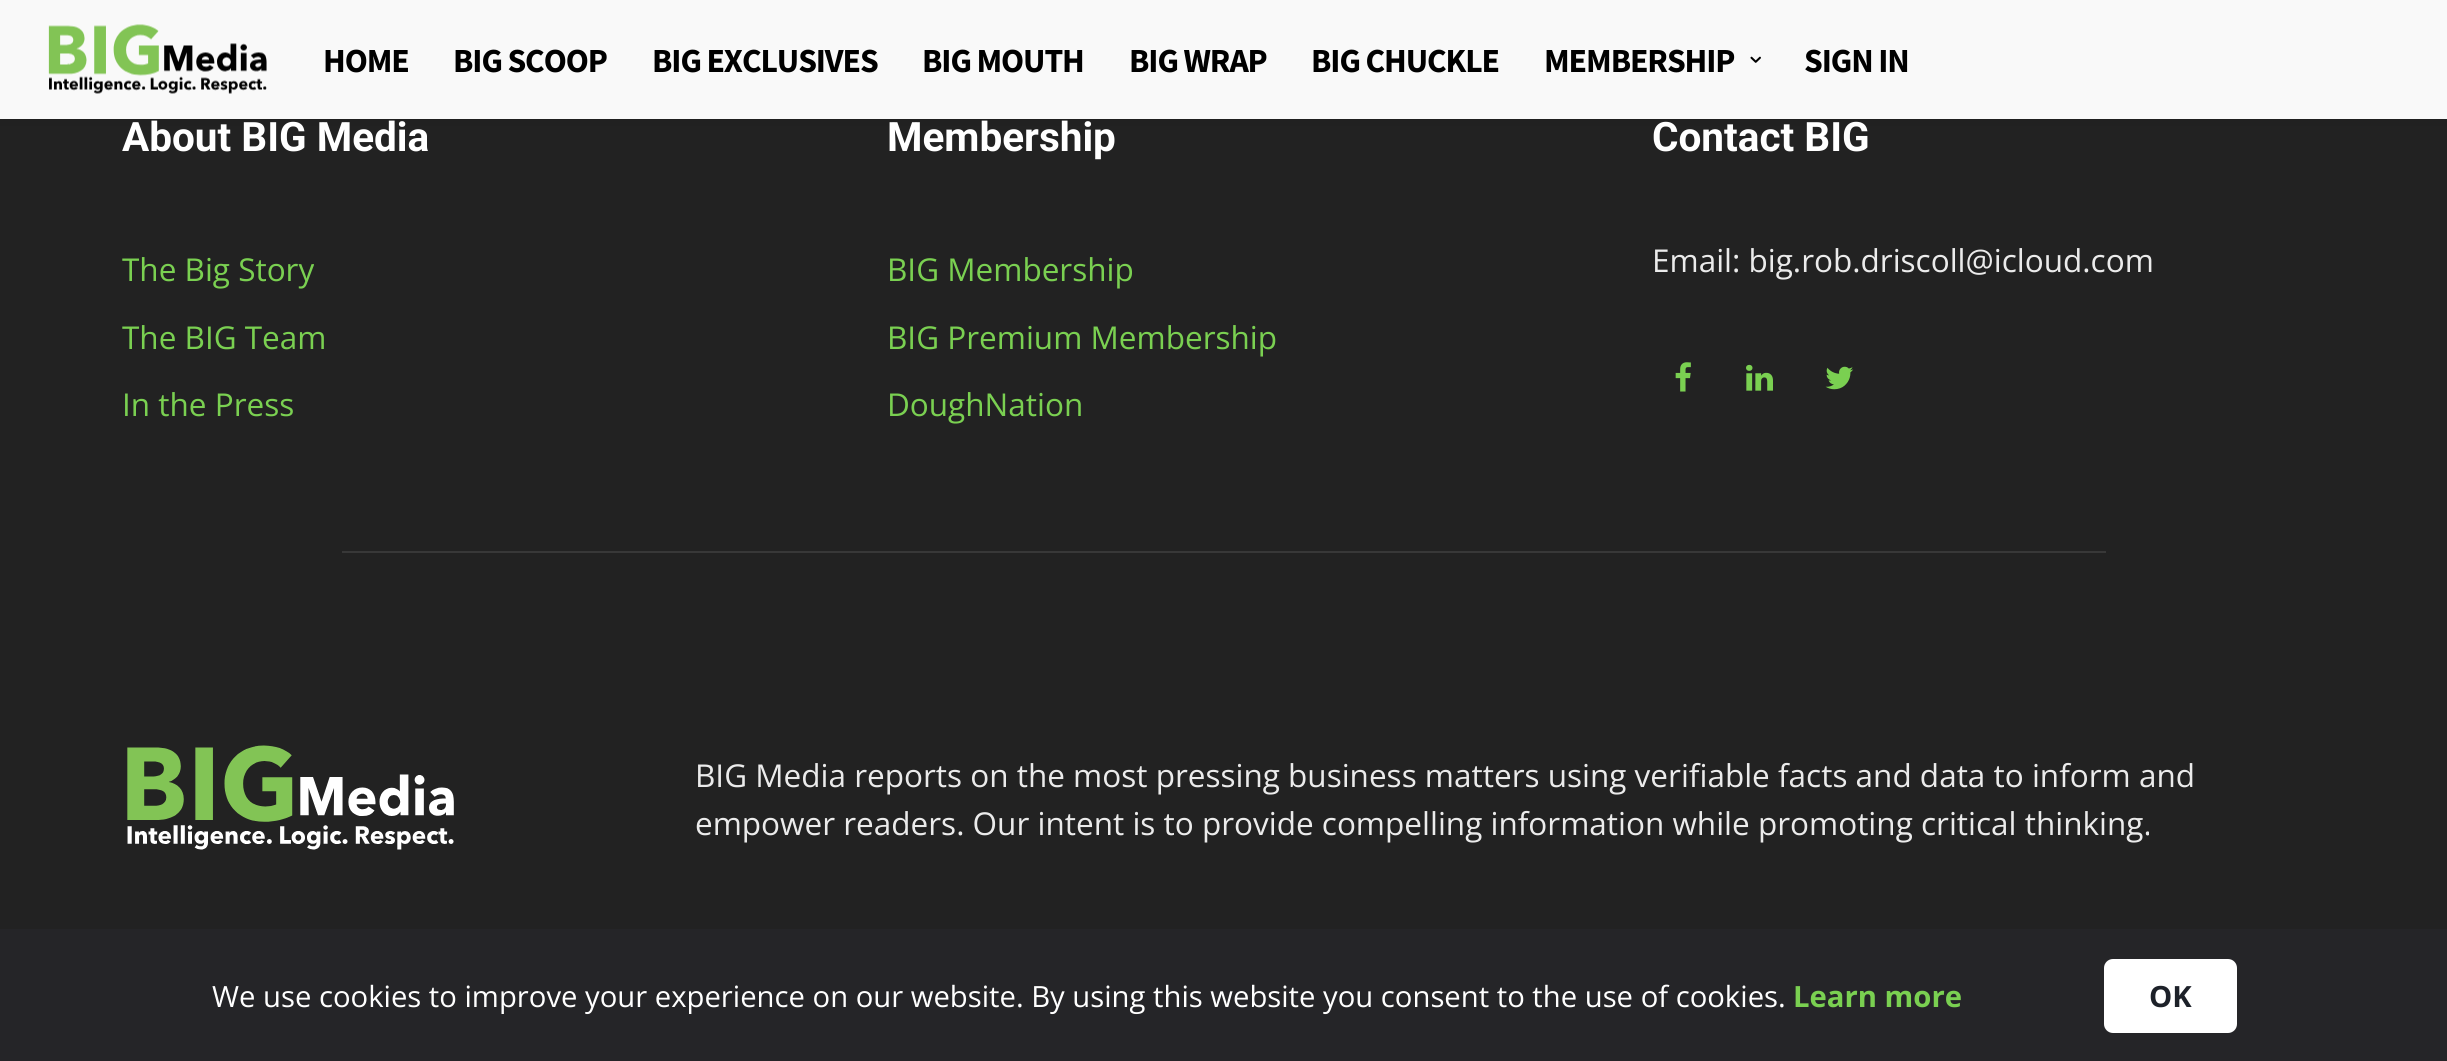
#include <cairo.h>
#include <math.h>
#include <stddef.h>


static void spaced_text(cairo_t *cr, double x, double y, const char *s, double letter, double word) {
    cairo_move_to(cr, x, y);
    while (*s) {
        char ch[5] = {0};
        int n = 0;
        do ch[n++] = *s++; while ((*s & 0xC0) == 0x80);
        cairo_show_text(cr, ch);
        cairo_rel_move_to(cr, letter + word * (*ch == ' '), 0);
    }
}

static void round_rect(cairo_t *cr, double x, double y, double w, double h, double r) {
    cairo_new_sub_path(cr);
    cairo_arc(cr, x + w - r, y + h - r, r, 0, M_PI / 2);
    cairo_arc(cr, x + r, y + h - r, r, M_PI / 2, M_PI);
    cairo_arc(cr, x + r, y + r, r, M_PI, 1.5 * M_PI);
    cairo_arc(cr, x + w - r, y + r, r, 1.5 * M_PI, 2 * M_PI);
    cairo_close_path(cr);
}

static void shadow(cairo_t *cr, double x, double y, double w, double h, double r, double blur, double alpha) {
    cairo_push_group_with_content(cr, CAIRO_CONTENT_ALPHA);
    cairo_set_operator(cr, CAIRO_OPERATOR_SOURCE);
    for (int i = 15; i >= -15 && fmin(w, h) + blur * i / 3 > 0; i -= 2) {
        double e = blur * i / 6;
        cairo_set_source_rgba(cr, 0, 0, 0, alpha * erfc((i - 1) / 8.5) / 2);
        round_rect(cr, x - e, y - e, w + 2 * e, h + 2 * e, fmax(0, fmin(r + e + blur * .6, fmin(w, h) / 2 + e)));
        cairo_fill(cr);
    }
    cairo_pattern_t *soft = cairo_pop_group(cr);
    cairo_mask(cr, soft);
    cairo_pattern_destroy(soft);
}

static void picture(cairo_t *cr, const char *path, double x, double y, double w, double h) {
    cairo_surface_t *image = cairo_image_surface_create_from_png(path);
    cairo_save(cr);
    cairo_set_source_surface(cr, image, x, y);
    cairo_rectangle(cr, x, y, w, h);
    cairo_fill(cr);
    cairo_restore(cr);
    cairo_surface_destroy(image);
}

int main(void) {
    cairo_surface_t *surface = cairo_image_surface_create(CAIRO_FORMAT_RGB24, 2447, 1061);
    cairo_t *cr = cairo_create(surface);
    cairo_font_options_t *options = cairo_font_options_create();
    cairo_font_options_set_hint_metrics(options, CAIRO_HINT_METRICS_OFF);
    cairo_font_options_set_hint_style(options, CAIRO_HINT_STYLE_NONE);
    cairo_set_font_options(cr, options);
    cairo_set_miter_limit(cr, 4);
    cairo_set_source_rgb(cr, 0.133, 0.133, 0.133);
    cairo_paint(cr);
    cairo_set_source_rgb(cr, 0.973, 0.973, 0.973);
    cairo_rectangle(cr, 0, 0, 2447, 119);
    cairo_fill(cr);
    picture(cr, "img1.png", 48, 24, 219, 70);
    cairo_save(cr);
    cairo_rectangle(cr, 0, 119, 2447, 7);
    cairo_clip(cr);
    cairo_set_source_rgb(cr, 0, 0, 0);
    shadow(cr, 0, 5, 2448, 119, 0, 4.5, 0.06);
    cairo_restore(cr);
    cairo_select_font_face(cr, "Source Sans Pro", CAIRO_FONT_SLANT_NORMAL, CAIRO_FONT_WEIGHT_BOLD);
    cairo_set_font_size(cr, 33.75);
    cairo_set_source_rgb(cr, 0, 0, 0);
    spaced_text(cr, 323, 72, "HOME", -1.1, 0);
    spaced_text(cr, 453, 72, "BIG SCOOP", -1.1, 0);
    spaced_text(cr, 652, 72, "BIG EXCLUSIVES", -1.1, 0);
    spaced_text(cr, 922, 72, "BIG MOUTH", -1.1, 0);
    spaced_text(cr, 1129, 72, "BIG WRAP", -1.1, 0);
    spaced_text(cr, 1311, 72, "BIG CHUCKLE", -1.1, 0);
    spaced_text(cr, 1544, 72, "MEMBERSHIP", -1.1, 0);
    picture(cr, "img2.png", 1750, 56, 11, 7);
    spaced_text(cr, 1804, 72, "SIGN IN", -1.1, 0);
    cairo_select_font_face(cr, "Roboto", CAIRO_FONT_SLANT_NORMAL, CAIRO_FONT_WEIGHT_BOLD);
    cairo_set_font_size(cr, 40.5);
    cairo_set_source_rgb(cr, 1, 1, 1);
    cairo_move_to(cr, 122, 151);
    cairo_show_text(cr, "About BIG Media");
    cairo_save(cr);
    cairo_rectangle(cr, 122, 99, 675, 340);
    cairo_clip(cr);
    cairo_select_font_face(cr, "Open Sans", CAIRO_FONT_SLANT_NORMAL, CAIRO_FONT_WEIGHT_NORMAL);
    cairo_set_font_size(cr, 31.5);
    cairo_set_source_rgb(cr, 0.478, 0.816, 0.318);
    cairo_move_to(cr, 122, 281);
    cairo_show_text(cr, "The Big Story");
    cairo_move_to(cr, 122, 349);
    cairo_show_text(cr, "The BIG Team");
    cairo_restore(cr);
    cairo_select_font_face(cr, "Open Sans", CAIRO_FONT_SLANT_NORMAL, CAIRO_FONT_WEIGHT_NORMAL);
    cairo_set_font_size(cr, 31.5);
    cairo_set_source_rgb(cr, 0.478, 0.816, 0.318);
    cairo_move_to(cr, 122, 416);
    cairo_show_text(cr, "In the Press");
    cairo_select_font_face(cr, "Roboto", CAIRO_FONT_SLANT_NORMAL, CAIRO_FONT_WEIGHT_BOLD);
    cairo_set_font_size(cr, 40.5);
    cairo_set_source_rgb(cr, 1, 1, 1);
    cairo_move_to(cr, 887, 151);
    cairo_show_text(cr, "Membership");
    cairo_select_font_face(cr, "Open Sans", CAIRO_FONT_SLANT_NORMAL, CAIRO_FONT_WEIGHT_NORMAL);
    cairo_set_font_size(cr, 31.5);
    cairo_set_source_rgb(cr, 0.478, 0.816, 0.318);
    cairo_move_to(cr, 887, 281);
    cairo_show_text(cr, "BIG Membership");
    cairo_move_to(cr, 887, 349);
    cairo_show_text(cr, "BIG Premium Membership");
    cairo_move_to(cr, 887, 416);
    cairo_show_text(cr, "DoughNation");
    cairo_select_font_face(cr, "Roboto", CAIRO_FONT_SLANT_NORMAL, CAIRO_FONT_WEIGHT_BOLD);
    cairo_set_font_size(cr, 40.5);
    cairo_set_source_rgb(cr, 1, 1, 1);
    cairo_move_to(cr, 1652, 151);
    cairo_show_text(cr, "Contact BIG");
    cairo_select_font_face(cr, "Open Sans", CAIRO_FONT_SLANT_NORMAL, CAIRO_FONT_WEIGHT_NORMAL);
    cairo_set_font_size(cr, 31.5);
    cairo_set_source_rgb(cr, 0.918, 0.918, 0.918);
    cairo_move_to(cr, 1652, 272);
    cairo_show_text(cr, "Email: big.rob.driscoll@icloud.com");
    cairo_set_source_rgb(cr, 0.145, 0.145, 0.157);
    cairo_rectangle(cr, 0, 929, 2447, 132);
    cairo_fill(cr);
    cairo_set_font_size(cr, 29.25);
    cairo_set_source_rgb(cr, 1, 1, 1);
    cairo_move_to(cr, 212, 1007);
    cairo_show_text(cr, "We use cookies to improve your experience on our website. By using this website you consent to the use of cookies.");
    cairo_select_font_face(cr, "Open Sans", CAIRO_FONT_SLANT_NORMAL, CAIRO_FONT_WEIGHT_BOLD);
    cairo_set_source_rgb(cr, 0.478, 0.816, 0.318);
    cairo_move_to(cr, 1793, 1007);
    cairo_show_text(cr, "Learn more");
    cairo_set_source_rgb(cr, 1, 1, 1);
    round_rect(cr, 2104, 959, 133, 74, 9);
    cairo_fill(cr);
    cairo_set_source_rgb(cr, 0.114, 0.129, 0.161);
    cairo_move_to(cr, 2149, 1007);
    cairo_show_text(cr, "OK");
    picture(cr, "img3.png", 1675, 362, 16, 30);
    picture(cr, "img4.png", 1746, 364, 27, 27);
    picture(cr, "img5.png", 1825, 366, 29, 24);
    cairo_set_source_rgb(cr, 0.22, 0.22, 0.22);
    cairo_rectangle(cr, 342, 551, 1764, 2);
    cairo_fill(cr);
    picture(cr, "img6.png", 127, 745, 327, 105);
    cairo_select_font_face(cr, "Open Sans", CAIRO_FONT_SLANT_NORMAL, CAIRO_FONT_WEIGHT_NORMAL);
    cairo_set_font_size(cr, 31.5);
    cairo_set_source_rgb(cr, 0.918, 0.918, 0.918);
    cairo_move_to(cr, 695, 787);
    cairo_show_text(cr, "BIG Media reports on the most pressing business matters using verifiable facts and data to inform and");
    cairo_move_to(cr, 695, 835);
    cairo_show_text(cr, "empower readers. Our intent is to provide compelling information while promoting critical thinking.");
    cairo_surface_write_to_png(surface, "page.png");
    cairo_font_options_destroy(options);
    cairo_destroy(cr);
    cairo_surface_destroy(surface);
    return 0;
}
